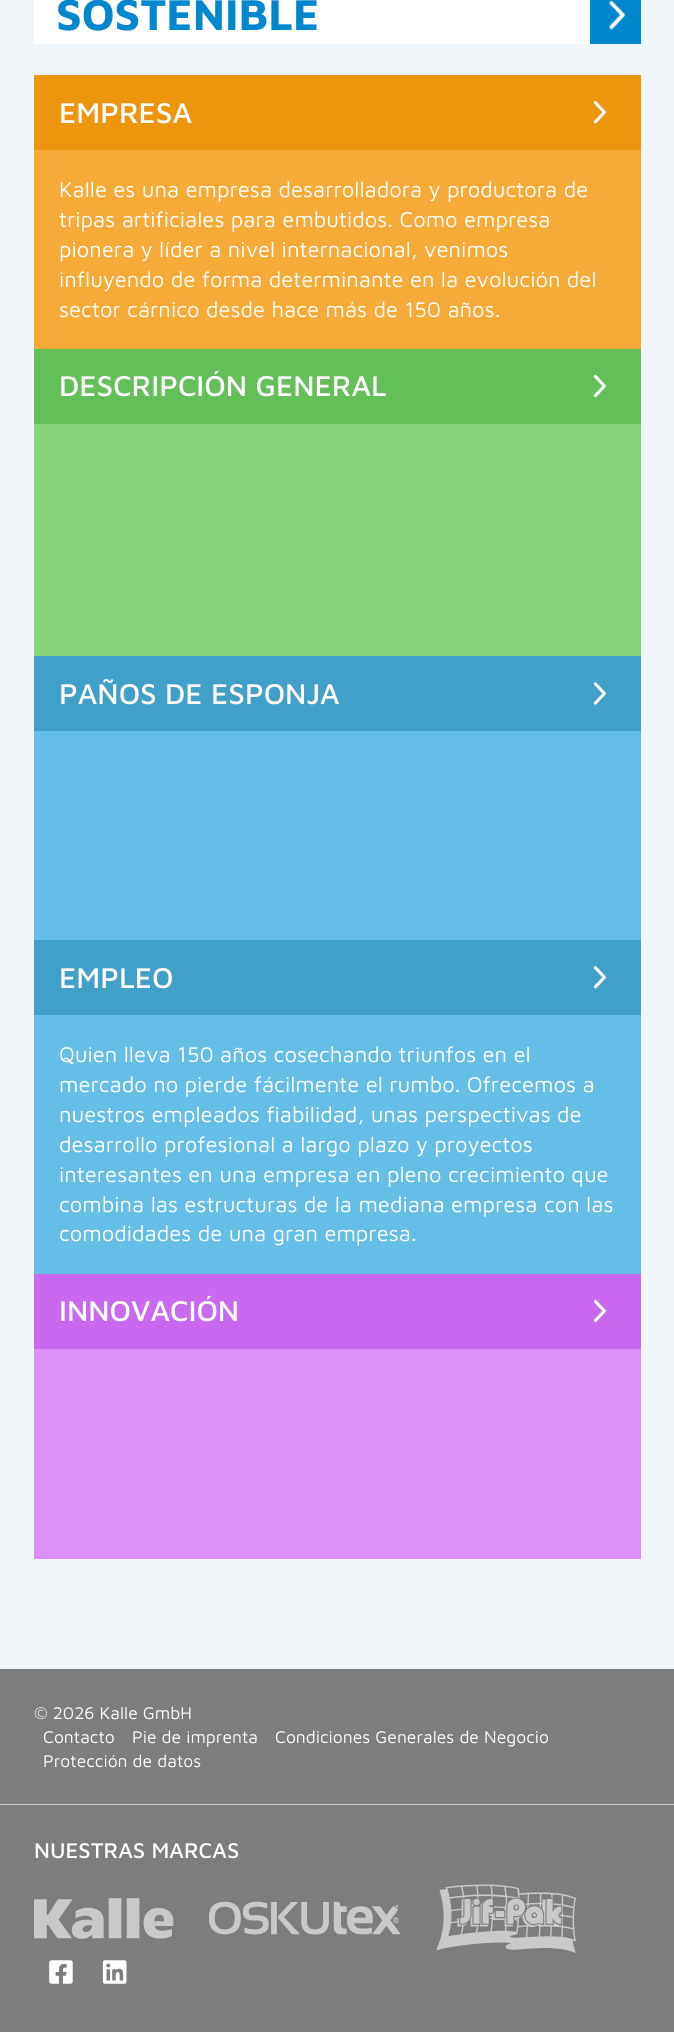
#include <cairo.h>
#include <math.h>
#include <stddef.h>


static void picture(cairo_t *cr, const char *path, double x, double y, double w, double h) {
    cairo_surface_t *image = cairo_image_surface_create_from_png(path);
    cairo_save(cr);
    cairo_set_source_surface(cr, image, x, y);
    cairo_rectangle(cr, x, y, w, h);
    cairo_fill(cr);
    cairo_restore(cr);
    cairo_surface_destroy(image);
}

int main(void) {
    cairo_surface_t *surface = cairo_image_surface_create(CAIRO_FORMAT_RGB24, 674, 2032);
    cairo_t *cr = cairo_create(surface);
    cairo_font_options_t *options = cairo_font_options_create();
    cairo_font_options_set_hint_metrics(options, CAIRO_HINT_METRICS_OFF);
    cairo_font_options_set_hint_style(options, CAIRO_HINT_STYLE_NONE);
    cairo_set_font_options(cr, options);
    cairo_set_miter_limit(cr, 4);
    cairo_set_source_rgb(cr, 0.941, 0.961, 0.98);
    cairo_paint(cr);
    cairo_set_source_rgb(cr, 1, 1, 1);
    cairo_rectangle(cr, 34, 0, 556, 44);
    cairo_fill(cr);
    cairo_select_font_face(cr, "Maven Pro", CAIRO_FONT_SLANT_NORMAL, CAIRO_FONT_WEIGHT_BOLD);
    cairo_set_font_size(cr, 44.5);
    cairo_set_source_rgb(cr, 0, 0.529, 0.804);
    cairo_move_to(cr, 56, 30);
    cairo_show_text(cr, "SOSTENIBLE");
    cairo_rectangle(cr, 590, 0, 51, 44);
    cairo_fill(cr);
    picture(cr, "img1.png", 608, 0, 17, 30);
    cairo_set_source_rgb(cr, 0.961, 0.667, 0.216);
    cairo_rectangle(cr, 34, 150, 607, 199);
    cairo_fill(cr);
    cairo_set_source_rgb(cr, 0.922, 0.588, 0.059);
    cairo_rectangle(cr, 34, 75, 607, 75);
    cairo_fill(cr);
    cairo_select_font_face(cr, "Maven Pro Medium", CAIRO_FONT_SLANT_NORMAL, CAIRO_FONT_WEIGHT_NORMAL);
    cairo_set_font_size(cr, 29.5);
    cairo_set_source_rgb(cr, 1, 1, 1);
    cairo_move_to(cr, 59, 123);
    cairo_show_text(cr, "EMPRESA");
    picture(cr, "img2.png", 593, 101, 13, 23);
    cairo_select_font_face(cr, "Maven Pro", CAIRO_FONT_SLANT_NORMAL, CAIRO_FONT_WEIGHT_NORMAL);
    cairo_set_font_size(cr, 22);
    cairo_move_to(cr, 59, 197);
    cairo_show_text(cr, "Kalle es una empresa desarrolladora y productora de");
    cairo_move_to(cr, 59, 227);
    cairo_show_text(cr, "tripas artificiales para embutidos. Como empresa");
    cairo_move_to(cr, 59, 257);
    cairo_show_text(cr, "pionera y líder a nivel internacional, venimos");
    cairo_move_to(cr, 59, 287);
    cairo_show_text(cr, "influyendo de forma determinante en la evolución del");
    cairo_move_to(cr, 59, 317);
    cairo_show_text(cr, "sector cárnico desde hace más de 150 años.");
    cairo_set_source_rgb(cr, 0.529, 0.824, 0.49);
    cairo_rectangle(cr, 34, 424, 607, 232);
    cairo_fill(cr);
    cairo_set_source_rgb(cr, 0.392, 0.745, 0.353);
    cairo_rectangle(cr, 34, 349, 607, 75);
    cairo_fill(cr);
    cairo_select_font_face(cr, "Maven Pro Medium", CAIRO_FONT_SLANT_NORMAL, CAIRO_FONT_WEIGHT_NORMAL);
    cairo_set_font_size(cr, 29.5);
    cairo_set_source_rgb(cr, 1, 1, 1);
    cairo_move_to(cr, 59, 396);
    cairo_show_text(cr, "DESCRIPCIÓN GENERAL");
    picture(cr, "img3.png", 593, 374, 13, 24);
    cairo_set_source_rgb(cr, 0.392, 0.745, 0.902);
    cairo_rectangle(cr, 34, 731, 607, 209);
    cairo_fill(cr);
    cairo_set_source_rgb(cr, 0.255, 0.627, 0.784);
    cairo_rectangle(cr, 34, 656, 607, 75);
    cairo_fill(cr);
    cairo_set_source_rgb(cr, 1, 1, 1);
    cairo_move_to(cr, 59, 704);
    cairo_show_text(cr, "PAÑOS DE ESPONJA");
    picture(cr, "img4.png", 593, 682, 13, 23);
    cairo_set_source_rgb(cr, 0.392, 0.745, 0.902);
    cairo_rectangle(cr, 34, 1015, 607, 259);
    cairo_fill(cr);
    cairo_set_source_rgb(cr, 0.255, 0.627, 0.784);
    cairo_rectangle(cr, 34, 940, 607, 75);
    cairo_fill(cr);
    cairo_set_source_rgb(cr, 1, 1, 1);
    cairo_move_to(cr, 59, 988);
    cairo_show_text(cr, "EMPLEO");
    picture(cr, "img5.png", 593, 966, 13, 23);
    cairo_select_font_face(cr, "Maven Pro", CAIRO_FONT_SLANT_NORMAL, CAIRO_FONT_WEIGHT_NORMAL);
    cairo_set_font_size(cr, 22);
    cairo_move_to(cr, 59, 1062);
    cairo_show_text(cr, "Quien lleva 150 años cosechando triunfos en el");
    cairo_move_to(cr, 59, 1092);
    cairo_show_text(cr, "mercado no pierde fácilmente el rumbo. Ofrecemos a");
    cairo_move_to(cr, 59, 1122);
    cairo_show_text(cr, "nuestros empleados fiabilidad, unas perspectivas de");
    cairo_move_to(cr, 59, 1152);
    cairo_show_text(cr, "desarrollo profesional a largo plazo y proyectos");
    cairo_move_to(cr, 59, 1182);
    cairo_show_text(cr, "interesantes en una empresa en pleno crecimiento que");
    cairo_move_to(cr, 59, 1212);
    cairo_show_text(cr, "combina las estructuras de la mediana empresa con las");
    cairo_move_to(cr, 59, 1241);
    cairo_show_text(cr, "comodidades de una gran empresa.");
    cairo_set_source_rgb(cr, 0.863, 0.569, 0.98);
    cairo_rectangle(cr, 34, 1349, 607, 210);
    cairo_fill(cr);
    cairo_set_source_rgb(cr, 0.784, 0.412, 0.941);
    cairo_rectangle(cr, 34, 1274, 607, 75);
    cairo_fill(cr);
    cairo_select_font_face(cr, "Maven Pro Medium", CAIRO_FONT_SLANT_NORMAL, CAIRO_FONT_WEIGHT_NORMAL);
    cairo_set_font_size(cr, 29.5);
    cairo_set_source_rgb(cr, 1, 1, 1);
    cairo_move_to(cr, 59, 1321);
    cairo_show_text(cr, "INNOVACIÓN");
    picture(cr, "img6.png", 593, 1299, 13, 24);
    cairo_set_source_rgb(cr, 0.49, 0.49, 0.49);
    cairo_rectangle(cr, 0, 1669, 674, 363);
    cairo_fill(cr);
    cairo_select_font_face(cr, "Maven Pro", CAIRO_FONT_SLANT_NORMAL, CAIRO_FONT_WEIGHT_NORMAL);
    cairo_set_font_size(cr, 17.5);
    cairo_set_source_rgb(cr, 1, 1, 1);
    cairo_move_to(cr, 34, 1719);
    cairo_show_text(cr, "© 2026 Kalle GmbH");
    cairo_move_to(cr, 43, 1743);
    cairo_show_text(cr, "Contacto");
    cairo_move_to(cr, 132, 1743);
    cairo_show_text(cr, "Pie de imprenta");
    cairo_move_to(cr, 275, 1743);
    cairo_show_text(cr, "Condiciones Generales de Negocio");
    cairo_move_to(cr, 43, 1767);
    cairo_show_text(cr, "Protección de datos");
    cairo_set_source_rgb(cr, 0.788, 0.788, 0.788);
    cairo_rectangle(cr, 0, 1804, 674, 1);
    cairo_fill(cr);
    cairo_select_font_face(cr, "Maven Pro Medium", CAIRO_FONT_SLANT_NORMAL, CAIRO_FONT_WEIGHT_NORMAL);
    cairo_set_font_size(cr, 22);
    cairo_set_source_rgb(cr, 1, 1, 1);
    cairo_move_to(cr, 34, 1858);
    cairo_show_text(cr, "NUESTRAS MARCAS");
    picture(cr, "img7.png", 34, 1898, 140, 41);
    picture(cr, "img8.png", 209, 1901, 192, 34);
    picture(cr, "img9.png", 436, 1884, 140, 69);
    picture(cr, "img10.png", 49, 1960, 24, 24);
    picture(cr, "img11.png", 102, 1960, 25, 24);
    cairo_surface_write_to_png(surface, "page.png");
    cairo_font_options_destroy(options);
    cairo_destroy(cr);
    cairo_surface_destroy(surface);
    return 0;
}
